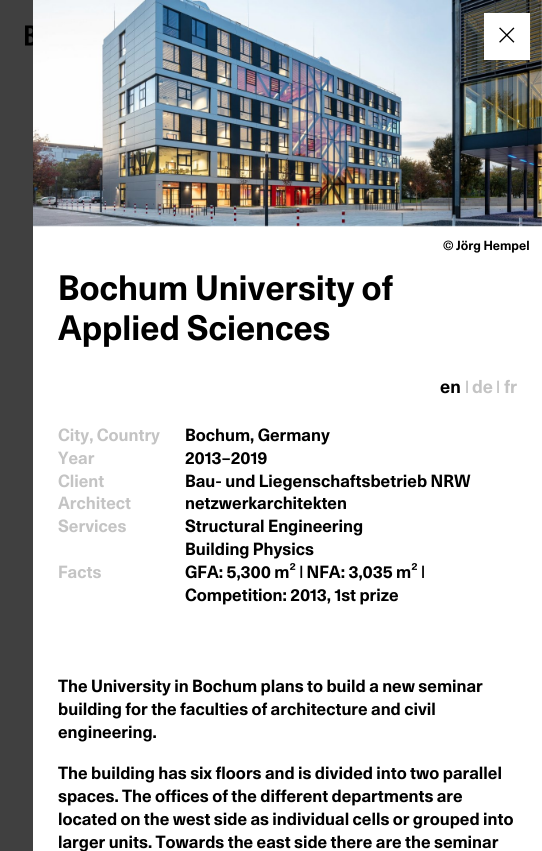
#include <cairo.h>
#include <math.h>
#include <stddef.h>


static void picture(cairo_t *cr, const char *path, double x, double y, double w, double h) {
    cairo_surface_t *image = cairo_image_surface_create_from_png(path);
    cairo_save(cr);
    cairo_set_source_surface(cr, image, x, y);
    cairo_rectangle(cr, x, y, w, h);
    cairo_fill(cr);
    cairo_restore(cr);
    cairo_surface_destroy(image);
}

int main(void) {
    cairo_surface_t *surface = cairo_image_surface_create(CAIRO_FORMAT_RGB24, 542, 851);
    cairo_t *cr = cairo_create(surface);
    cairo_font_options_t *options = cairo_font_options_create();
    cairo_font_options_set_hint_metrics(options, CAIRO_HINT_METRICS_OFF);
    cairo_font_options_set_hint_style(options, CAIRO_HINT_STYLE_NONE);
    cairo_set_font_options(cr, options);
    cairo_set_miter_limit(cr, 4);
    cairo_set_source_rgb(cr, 0.251, 0.251, 0.251);
    cairo_paint(cr);
    picture(cr, "img1.png", 25, 25, 8, 21);
    cairo_set_source_rgb(cr, 1, 1, 1);
    cairo_rectangle(cr, 33, 0, 509, 851);
    cairo_fill(cr);
    picture(cr, "img3.png", 33, 0, 509, 227);
    cairo_rectangle(cr, 484, 13, 46, 47);
    cairo_fill(cr);
    picture(cr, "img2.png", 499, 27, 16, 16);
    cairo_select_font_face(cr, "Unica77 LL", CAIRO_FONT_SLANT_NORMAL, CAIRO_FONT_WEIGHT_BOLD);
    cairo_set_font_size(cr, 12.75);
    cairo_set_source_rgb(cr, 0, 0, 0);
    cairo_move_to(cr, 443, 250);
    cairo_show_text(cr, "© Jörg Hempel");
    cairo_set_font_size(cr, 34);
    cairo_move_to(cr, 58, 300);
    cairo_show_text(cr, "Bochum University of");
    cairo_move_to(cr, 58, 340);
    cairo_show_text(cr, "Applied Sciences");
    cairo_set_font_size(cr, 18);
    cairo_move_to(cr, 440, 393);
    cairo_show_text(cr, "en");
    cairo_set_font_size(cr, 17);
    cairo_set_source_rgb(cr, 0.769, 0.769, 0.769);
    cairo_move_to(cr, 465, 393);
    cairo_show_text(cr, "|");
    cairo_set_font_size(cr, 18);
    cairo_move_to(cr, 472, 393);
    cairo_show_text(cr, "de");
    cairo_set_font_size(cr, 17);
    cairo_move_to(cr, 496, 393);
    cairo_show_text(cr, "|");
    cairo_set_font_size(cr, 18);
    cairo_move_to(cr, 504, 393);
    cairo_show_text(cr, "fr");
    cairo_set_font_size(cr, 17);
    cairo_move_to(cr, 58, 441);
    cairo_show_text(cr, "City, Country");
    cairo_set_source_rgb(cr, 0, 0, 0);
    cairo_move_to(cr, 185, 441);
    cairo_show_text(cr, "Bochum, Germany");
    cairo_set_source_rgb(cr, 0.769, 0.769, 0.769);
    cairo_move_to(cr, 58, 464);
    cairo_show_text(cr, "Year");
    cairo_set_source_rgb(cr, 0, 0, 0);
    cairo_move_to(cr, 185, 464);
    cairo_show_text(cr, "2013–2019");
    cairo_set_source_rgb(cr, 0.769, 0.769, 0.769);
    cairo_move_to(cr, 58, 487);
    cairo_show_text(cr, "Client");
    cairo_set_source_rgb(cr, 0, 0, 0);
    cairo_move_to(cr, 185, 487);
    cairo_show_text(cr, "Bau- und Liegenschaftsbetrieb NRW");
    cairo_set_source_rgb(cr, 0.769, 0.769, 0.769);
    cairo_move_to(cr, 58, 509);
    cairo_show_text(cr, "Architect");
    cairo_set_source_rgb(cr, 0, 0, 0);
    cairo_move_to(cr, 185, 509);
    cairo_show_text(cr, "netzwerkarchitekten");
    cairo_set_source_rgb(cr, 0.769, 0.769, 0.769);
    cairo_move_to(cr, 58, 532);
    cairo_show_text(cr, "Services");
    cairo_set_source_rgb(cr, 0, 0, 0);
    cairo_move_to(cr, 185, 532);
    cairo_show_text(cr, "Structural Engineering");
    cairo_move_to(cr, 185, 555);
    cairo_show_text(cr, "Building Physics");
    cairo_set_source_rgb(cr, 0.769, 0.769, 0.769);
    cairo_move_to(cr, 58, 578);
    cairo_show_text(cr, "Facts");
    cairo_set_source_rgb(cr, 0, 0, 0);
    cairo_move_to(cr, 185, 578);
    cairo_show_text(cr, "GFA: 5,300 m² | NFA: 3,035 m² |");
    cairo_move_to(cr, 185, 601);
    cairo_show_text(cr, "Competition: 2013, 1st prize");
    cairo_move_to(cr, 58, 692);
    cairo_show_text(cr, "The University in Bochum plans to build a new seminar");
    cairo_move_to(cr, 58, 715);
    cairo_show_text(cr, "building for the faculties of architecture and civil");
    cairo_move_to(cr, 58, 738);
    cairo_show_text(cr, "engineering.");
    cairo_move_to(cr, 58, 779);
    cairo_show_text(cr, "The building has six floors and is divided into two parallel");
    cairo_move_to(cr, 58, 802);
    cairo_show_text(cr, "spaces. The offices of the different departments are");
    cairo_move_to(cr, 58, 825);
    cairo_show_text(cr, "located on the west side as individual cells or grouped into");
    cairo_move_to(cr, 58, 848);
    cairo_show_text(cr, "larger units. Towards the east side there are the seminar");
    cairo_surface_write_to_png(surface, "page.png");
    cairo_font_options_destroy(options);
    cairo_destroy(cr);
    cairo_surface_destroy(surface);
    return 0;
}
